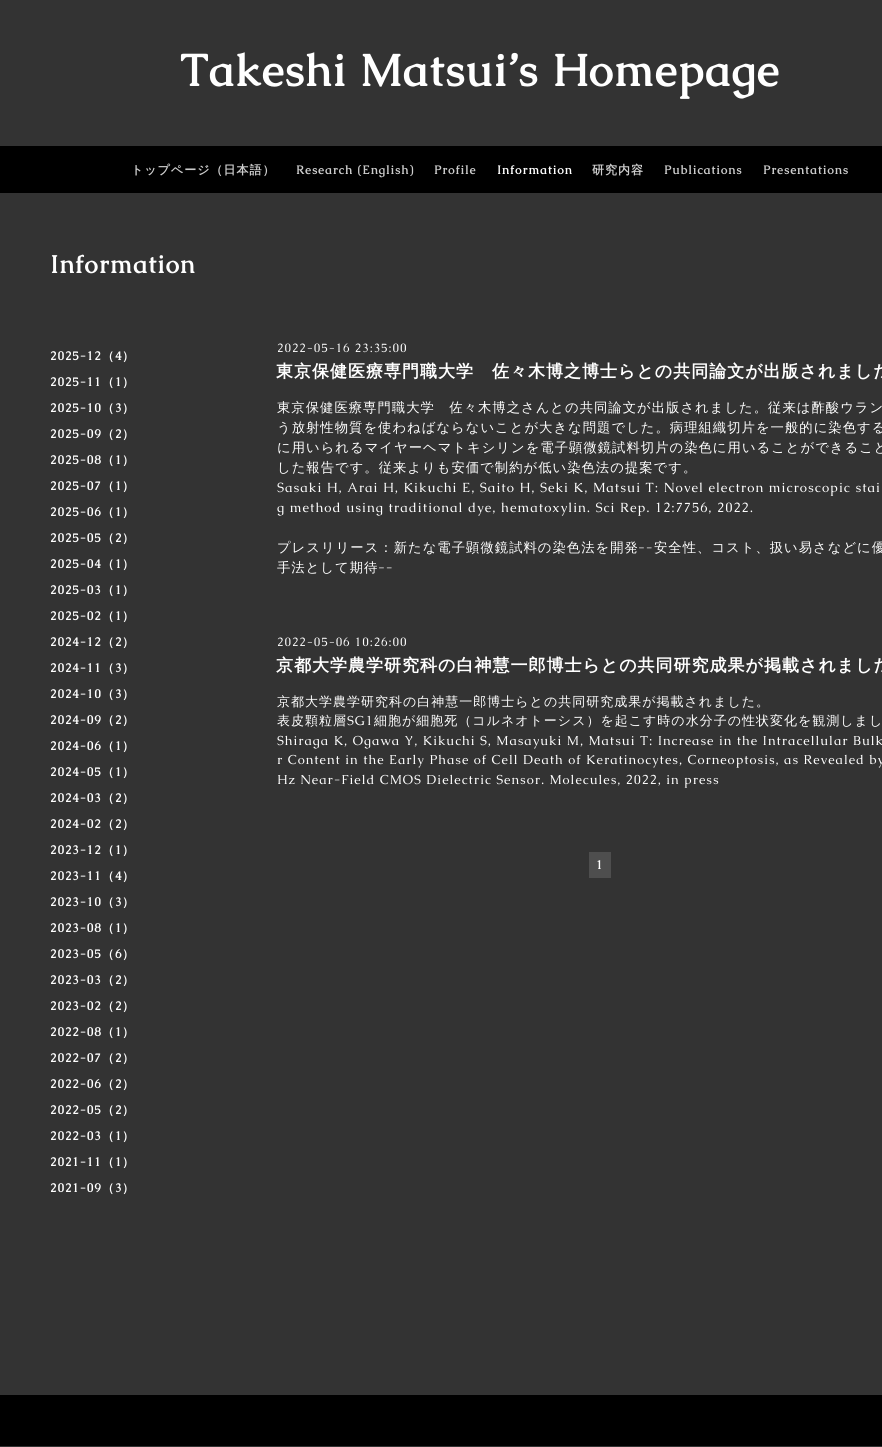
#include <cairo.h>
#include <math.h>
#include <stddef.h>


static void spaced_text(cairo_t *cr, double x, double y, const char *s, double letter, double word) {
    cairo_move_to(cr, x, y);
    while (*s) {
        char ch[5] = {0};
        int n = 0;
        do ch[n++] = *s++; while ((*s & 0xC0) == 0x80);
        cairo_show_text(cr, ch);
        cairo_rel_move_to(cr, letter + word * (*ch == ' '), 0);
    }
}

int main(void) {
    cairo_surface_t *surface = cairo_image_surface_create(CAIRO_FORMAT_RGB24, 882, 1447);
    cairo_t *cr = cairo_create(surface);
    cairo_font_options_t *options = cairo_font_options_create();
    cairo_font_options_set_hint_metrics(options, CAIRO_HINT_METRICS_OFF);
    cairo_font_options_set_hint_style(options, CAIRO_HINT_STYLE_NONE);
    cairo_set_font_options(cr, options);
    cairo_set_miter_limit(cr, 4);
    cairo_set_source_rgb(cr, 0.2, 0.2, 0.2);
    cairo_paint(cr);
    cairo_select_font_face(cr, "Caudex", CAIRO_FONT_SLANT_NORMAL, CAIRO_FONT_WEIGHT_BOLD);
    cairo_set_font_size(cr, 45);
    cairo_set_source_rgb(cr, 1, 1, 1);
    spaced_text(cr, 180, 86, "Takeshi Matsui’s Homepage", 1, 0);
    cairo_set_source_rgb(cr, 0, 0, 0);
    cairo_rectangle(cr, 0, 146, 882, 47);
    cairo_fill(cr);
    cairo_select_font_face(cr, "WenQuanYi Zen Hei", CAIRO_FONT_SLANT_NORMAL, CAIRO_FONT_WEIGHT_BOLD);
    cairo_set_font_size(cr, 12);
    cairo_set_source_rgb(cr, 0.8, 0.8, 0.8);
    spaced_text(cr, 131, 174, "トップページ（日本語）", 1, 0);
    cairo_select_font_face(cr, "Caudex", CAIRO_FONT_SLANT_NORMAL, CAIRO_FONT_WEIGHT_BOLD);
    spaced_text(cr, 296, 174, "Research (English)", 1, 0);
    spaced_text(cr, 434, 174, "Profile", 1, 0);
    cairo_set_source_rgb(cr, 1, 1, 1);
    spaced_text(cr, 497, 174, "Information", 1, 0);
    cairo_select_font_face(cr, "WenQuanYi Zen Hei", CAIRO_FONT_SLANT_NORMAL, CAIRO_FONT_WEIGHT_BOLD);
    cairo_set_source_rgb(cr, 0.8, 0.8, 0.8);
    spaced_text(cr, 592, 174, "研究内容", 1, 0);
    cairo_select_font_face(cr, "Caudex", CAIRO_FONT_SLANT_NORMAL, CAIRO_FONT_WEIGHT_BOLD);
    spaced_text(cr, 664, 174, "Publications", 1, 0);
    spaced_text(cr, 763, 174, "Presentations", 1, 0);
    cairo_set_font_size(cr, 25);
    cairo_set_source_rgb(cr, 1, 1, 1);
    spaced_text(cr, 50, 273, "Information", 1, 0);
    cairo_select_font_face(cr, "Caudex", CAIRO_FONT_SLANT_NORMAL, CAIRO_FONT_WEIGHT_NORMAL);
    cairo_set_font_size(cr, 12);
    spaced_text(cr, 277, 352, "2022-05-16 23:35:00", 1, 0);
    cairo_select_font_face(cr, "WenQuanYi Zen Hei", CAIRO_FONT_SLANT_NORMAL, CAIRO_FONT_WEIGHT_BOLD);
    cairo_set_font_size(cr, 17);
    spaced_text(cr, 276, 377, "東京保健医療専門職大学　佐々木博之博士らとの共同論文が出版されました", 1, 0);
    cairo_select_font_face(cr, "WenQuanYi Zen Hei Medium", CAIRO_FONT_SLANT_NORMAL, CAIRO_FONT_WEIGHT_NORMAL);
    cairo_set_font_size(cr, 13.35);
    spaced_text(cr, 277, 412, "東京保健医療専門職大学　佐々木博之さんとの共同論文が出版されました。従来は酢酸ウラン", 1, 0);
    spaced_text(cr, 277, 432, "う放射性物質を使わねばならないことが大きな問題でした。病理組織切片を一般的に染色する", 1, 0);
    spaced_text(cr, 277, 452, "に用いられるマイヤーヘマトキシリンを電子顕微鏡試料切片の染色に用いることができること", 1, 0);
    spaced_text(cr, 277, 472, "した報告です。従来よりも安価で制約が低い染色法の提案です。", 1, 0);
    cairo_select_font_face(cr, "Caudex", CAIRO_FONT_SLANT_NORMAL, CAIRO_FONT_WEIGHT_NORMAL);
    spaced_text(cr, 277, 492, "Sasaki H, Arai H, Kikuchi E, Saito H, Seki K, Matsui T: Novel electron microscopic stai", 1, 0);
    spaced_text(cr, 277, 512, "g method using traditional dye, hematoxylin. Sci Rep. 12:7756, 2022.", 1, 0);
    cairo_select_font_face(cr, "WenQuanYi Zen Hei Medium", CAIRO_FONT_SLANT_NORMAL, CAIRO_FONT_WEIGHT_NORMAL);
    spaced_text(cr, 277, 552, "プレスリリース：新たな電⼦顕微鏡試料の染⾊法を開発", 1, 0);
    cairo_select_font_face(cr, "Caudex", CAIRO_FONT_SLANT_NORMAL, CAIRO_FONT_WEIGHT_NORMAL);
    spaced_text(cr, 638, 552, "--", 1, 0);
    cairo_select_font_face(cr, "WenQuanYi Zen Hei Medium", CAIRO_FONT_SLANT_NORMAL, CAIRO_FONT_WEIGHT_NORMAL);
    spaced_text(cr, 654, 552, "安全性、コスト、扱い易さなどに優", 1, 0);
    spaced_text(cr, 277, 572, "⼿法として期待", 1, 0);
    cairo_select_font_face(cr, "Caudex", CAIRO_FONT_SLANT_NORMAL, CAIRO_FONT_WEIGHT_NORMAL);
    spaced_text(cr, 378, 572, "--", 1, 0);
    cairo_set_font_size(cr, 12);
    spaced_text(cr, 277, 646, "2022-05-06 10:26:00", 1, 0);
    cairo_select_font_face(cr, "WenQuanYi Zen Hei", CAIRO_FONT_SLANT_NORMAL, CAIRO_FONT_WEIGHT_BOLD);
    cairo_set_font_size(cr, 17);
    spaced_text(cr, 276, 671, "京都大学農学研究科の白神慧一郎博士らとの共同研究成果が掲載されました", 1, 0);
    cairo_select_font_face(cr, "WenQuanYi Zen Hei Medium", CAIRO_FONT_SLANT_NORMAL, CAIRO_FONT_WEIGHT_NORMAL);
    cairo_set_font_size(cr, 13);
    spaced_text(cr, 277, 706, "京都大学農学研究科の白神慧一郎博士らとの共同研究成果が掲載されました。", 1, 0);
    spaced_text(cr, 277, 725, "表皮顆粒層", 1, 0);
    cairo_select_font_face(cr, "Caudex", CAIRO_FONT_SLANT_NORMAL, CAIRO_FONT_WEIGHT_NORMAL);
    spaced_text(cr, 347, 725, "SG1", 1, 0);
    cairo_select_font_face(cr, "WenQuanYi Zen Hei Medium", CAIRO_FONT_SLANT_NORMAL, CAIRO_FONT_WEIGHT_NORMAL);
    spaced_text(cr, 374, 725, "細胞が細胞死（コルネオトーシス）を起こす時の水分子の性状変化を観測しまし", 1, 0);
    cairo_select_font_face(cr, "Caudex", CAIRO_FONT_SLANT_NORMAL, CAIRO_FONT_WEIGHT_NORMAL);
    spaced_text(cr, 277, 745, "Shiraga K, Ogawa Y, Kikuchi S, Masayuki M, Matsui T: Increase in the Intracellular Bulk", 1, 0);
    spaced_text(cr, 277, 764, "r Content in the Early Phase of Cell Death of Keratinocytes, Corneoptosis, as Revealed by", 1, 0);
    spaced_text(cr, 277, 784, "Hz Near-Field CMOS Dielectric Sensor. Molecules, 2022, in press", 1, 0);
    cairo_set_source_rgb(cr, 0.306, 0.306, 0.306);
    cairo_rectangle(cr, 589, 852, 22, 26);
    cairo_fill(cr);
    cairo_select_font_face(cr, "Caudex", CAIRO_FONT_SLANT_NORMAL, CAIRO_FONT_WEIGHT_BOLD);
    cairo_set_font_size(cr, 12);
    cairo_set_source_rgb(cr, 1, 1, 1);
    spaced_text(cr, 596, 869, "1", 1, 0);
    spaced_text(cr, 50, 360, "2025-12", 1, 0);
    cairo_select_font_face(cr, "WenQuanYi Zen Hei", CAIRO_FONT_SLANT_NORMAL, CAIRO_FONT_WEIGHT_BOLD);
    spaced_text(cr, 102, 360, "（", 1, 0);
    cairo_select_font_face(cr, "Caudex", CAIRO_FONT_SLANT_NORMAL, CAIRO_FONT_WEIGHT_BOLD);
    spaced_text(cr, 115, 360, "4", 1, 0);
    cairo_select_font_face(cr, "WenQuanYi Zen Hei", CAIRO_FONT_SLANT_NORMAL, CAIRO_FONT_WEIGHT_BOLD);
    spaced_text(cr, 122, 360, "）", 1, 0);
    cairo_select_font_face(cr, "Caudex", CAIRO_FONT_SLANT_NORMAL, CAIRO_FONT_WEIGHT_BOLD);
    spaced_text(cr, 50, 386, "2025-11", 1, 0);
    cairo_select_font_face(cr, "WenQuanYi Zen Hei", CAIRO_FONT_SLANT_NORMAL, CAIRO_FONT_WEIGHT_BOLD);
    spaced_text(cr, 102, 386, "（", 1, 0);
    cairo_select_font_face(cr, "Caudex", CAIRO_FONT_SLANT_NORMAL, CAIRO_FONT_WEIGHT_BOLD);
    spaced_text(cr, 115, 386, "1", 1, 0);
    cairo_select_font_face(cr, "WenQuanYi Zen Hei", CAIRO_FONT_SLANT_NORMAL, CAIRO_FONT_WEIGHT_BOLD);
    spaced_text(cr, 122, 386, "）", 1, 0);
    cairo_select_font_face(cr, "Caudex", CAIRO_FONT_SLANT_NORMAL, CAIRO_FONT_WEIGHT_BOLD);
    spaced_text(cr, 50, 412, "2025-10", 1, 0);
    cairo_select_font_face(cr, "WenQuanYi Zen Hei", CAIRO_FONT_SLANT_NORMAL, CAIRO_FONT_WEIGHT_BOLD);
    spaced_text(cr, 102, 412, "（", 1, 0);
    cairo_select_font_face(cr, "Caudex", CAIRO_FONT_SLANT_NORMAL, CAIRO_FONT_WEIGHT_BOLD);
    spaced_text(cr, 115, 412, "3", 1, 0);
    cairo_select_font_face(cr, "WenQuanYi Zen Hei", CAIRO_FONT_SLANT_NORMAL, CAIRO_FONT_WEIGHT_BOLD);
    spaced_text(cr, 122, 412, "）", 1, 0);
    cairo_select_font_face(cr, "Caudex", CAIRO_FONT_SLANT_NORMAL, CAIRO_FONT_WEIGHT_BOLD);
    spaced_text(cr, 50, 438, "2025-09", 1, 0);
    cairo_select_font_face(cr, "WenQuanYi Zen Hei", CAIRO_FONT_SLANT_NORMAL, CAIRO_FONT_WEIGHT_BOLD);
    spaced_text(cr, 102, 438, "（", 1, 0);
    cairo_select_font_face(cr, "Caudex", CAIRO_FONT_SLANT_NORMAL, CAIRO_FONT_WEIGHT_BOLD);
    spaced_text(cr, 115, 438, "2", 1, 0);
    cairo_select_font_face(cr, "WenQuanYi Zen Hei", CAIRO_FONT_SLANT_NORMAL, CAIRO_FONT_WEIGHT_BOLD);
    spaced_text(cr, 122, 438, "）", 1, 0);
    cairo_select_font_face(cr, "Caudex", CAIRO_FONT_SLANT_NORMAL, CAIRO_FONT_WEIGHT_BOLD);
    spaced_text(cr, 50, 464, "2025-08", 1, 0);
    cairo_select_font_face(cr, "WenQuanYi Zen Hei", CAIRO_FONT_SLANT_NORMAL, CAIRO_FONT_WEIGHT_BOLD);
    spaced_text(cr, 102, 464, "（", 1, 0);
    cairo_select_font_face(cr, "Caudex", CAIRO_FONT_SLANT_NORMAL, CAIRO_FONT_WEIGHT_BOLD);
    spaced_text(cr, 115, 464, "1", 1, 0);
    cairo_select_font_face(cr, "WenQuanYi Zen Hei", CAIRO_FONT_SLANT_NORMAL, CAIRO_FONT_WEIGHT_BOLD);
    spaced_text(cr, 122, 464, "）", 1, 0);
    cairo_select_font_face(cr, "Caudex", CAIRO_FONT_SLANT_NORMAL, CAIRO_FONT_WEIGHT_BOLD);
    spaced_text(cr, 50, 490, "2025-07", 1, 0);
    cairo_select_font_face(cr, "WenQuanYi Zen Hei", CAIRO_FONT_SLANT_NORMAL, CAIRO_FONT_WEIGHT_BOLD);
    spaced_text(cr, 102, 490, "（", 1, 0);
    cairo_select_font_face(cr, "Caudex", CAIRO_FONT_SLANT_NORMAL, CAIRO_FONT_WEIGHT_BOLD);
    spaced_text(cr, 115, 490, "1", 1, 0);
    cairo_select_font_face(cr, "WenQuanYi Zen Hei", CAIRO_FONT_SLANT_NORMAL, CAIRO_FONT_WEIGHT_BOLD);
    spaced_text(cr, 122, 490, "）", 1, 0);
    cairo_select_font_face(cr, "Caudex", CAIRO_FONT_SLANT_NORMAL, CAIRO_FONT_WEIGHT_BOLD);
    spaced_text(cr, 50, 516, "2025-06", 1, 0);
    cairo_select_font_face(cr, "WenQuanYi Zen Hei", CAIRO_FONT_SLANT_NORMAL, CAIRO_FONT_WEIGHT_BOLD);
    spaced_text(cr, 102, 516, "（", 1, 0);
    cairo_select_font_face(cr, "Caudex", CAIRO_FONT_SLANT_NORMAL, CAIRO_FONT_WEIGHT_BOLD);
    spaced_text(cr, 115, 516, "1", 1, 0);
    cairo_select_font_face(cr, "WenQuanYi Zen Hei", CAIRO_FONT_SLANT_NORMAL, CAIRO_FONT_WEIGHT_BOLD);
    spaced_text(cr, 122, 516, "）", 1, 0);
    cairo_select_font_face(cr, "Caudex", CAIRO_FONT_SLANT_NORMAL, CAIRO_FONT_WEIGHT_BOLD);
    spaced_text(cr, 50, 542, "2025-05", 1, 0);
    cairo_select_font_face(cr, "WenQuanYi Zen Hei", CAIRO_FONT_SLANT_NORMAL, CAIRO_FONT_WEIGHT_BOLD);
    spaced_text(cr, 102, 542, "（", 1, 0);
    cairo_select_font_face(cr, "Caudex", CAIRO_FONT_SLANT_NORMAL, CAIRO_FONT_WEIGHT_BOLD);
    spaced_text(cr, 115, 542, "2", 1, 0);
    cairo_select_font_face(cr, "WenQuanYi Zen Hei", CAIRO_FONT_SLANT_NORMAL, CAIRO_FONT_WEIGHT_BOLD);
    spaced_text(cr, 122, 542, "）", 1, 0);
    cairo_select_font_face(cr, "Caudex", CAIRO_FONT_SLANT_NORMAL, CAIRO_FONT_WEIGHT_BOLD);
    spaced_text(cr, 50, 568, "2025-04", 1, 0);
    cairo_select_font_face(cr, "WenQuanYi Zen Hei", CAIRO_FONT_SLANT_NORMAL, CAIRO_FONT_WEIGHT_BOLD);
    spaced_text(cr, 102, 568, "（", 1, 0);
    cairo_select_font_face(cr, "Caudex", CAIRO_FONT_SLANT_NORMAL, CAIRO_FONT_WEIGHT_BOLD);
    spaced_text(cr, 115, 568, "1", 1, 0);
    cairo_select_font_face(cr, "WenQuanYi Zen Hei", CAIRO_FONT_SLANT_NORMAL, CAIRO_FONT_WEIGHT_BOLD);
    spaced_text(cr, 122, 568, "）", 1, 0);
    cairo_select_font_face(cr, "Caudex", CAIRO_FONT_SLANT_NORMAL, CAIRO_FONT_WEIGHT_BOLD);
    spaced_text(cr, 50, 594, "2025-03", 1, 0);
    cairo_select_font_face(cr, "WenQuanYi Zen Hei", CAIRO_FONT_SLANT_NORMAL, CAIRO_FONT_WEIGHT_BOLD);
    spaced_text(cr, 102, 594, "（", 1, 0);
    cairo_select_font_face(cr, "Caudex", CAIRO_FONT_SLANT_NORMAL, CAIRO_FONT_WEIGHT_BOLD);
    spaced_text(cr, 115, 594, "1", 1, 0);
    cairo_select_font_face(cr, "WenQuanYi Zen Hei", CAIRO_FONT_SLANT_NORMAL, CAIRO_FONT_WEIGHT_BOLD);
    spaced_text(cr, 122, 594, "）", 1, 0);
    cairo_select_font_face(cr, "Caudex", CAIRO_FONT_SLANT_NORMAL, CAIRO_FONT_WEIGHT_BOLD);
    spaced_text(cr, 50, 620, "2025-02", 1, 0);
    cairo_select_font_face(cr, "WenQuanYi Zen Hei", CAIRO_FONT_SLANT_NORMAL, CAIRO_FONT_WEIGHT_BOLD);
    spaced_text(cr, 102, 620, "（", 1, 0);
    cairo_select_font_face(cr, "Caudex", CAIRO_FONT_SLANT_NORMAL, CAIRO_FONT_WEIGHT_BOLD);
    spaced_text(cr, 115, 620, "1", 1, 0);
    cairo_select_font_face(cr, "WenQuanYi Zen Hei", CAIRO_FONT_SLANT_NORMAL, CAIRO_FONT_WEIGHT_BOLD);
    spaced_text(cr, 122, 620, "）", 1, 0);
    cairo_select_font_face(cr, "Caudex", CAIRO_FONT_SLANT_NORMAL, CAIRO_FONT_WEIGHT_BOLD);
    spaced_text(cr, 50, 646, "2024-12", 1, 0);
    cairo_select_font_face(cr, "WenQuanYi Zen Hei", CAIRO_FONT_SLANT_NORMAL, CAIRO_FONT_WEIGHT_BOLD);
    spaced_text(cr, 102, 646, "（", 1, 0);
    cairo_select_font_face(cr, "Caudex", CAIRO_FONT_SLANT_NORMAL, CAIRO_FONT_WEIGHT_BOLD);
    spaced_text(cr, 115, 646, "2", 1, 0);
    cairo_select_font_face(cr, "WenQuanYi Zen Hei", CAIRO_FONT_SLANT_NORMAL, CAIRO_FONT_WEIGHT_BOLD);
    spaced_text(cr, 122, 646, "）", 1, 0);
    cairo_select_font_face(cr, "Caudex", CAIRO_FONT_SLANT_NORMAL, CAIRO_FONT_WEIGHT_BOLD);
    spaced_text(cr, 50, 672, "2024-11", 1, 0);
    cairo_select_font_face(cr, "WenQuanYi Zen Hei", CAIRO_FONT_SLANT_NORMAL, CAIRO_FONT_WEIGHT_BOLD);
    spaced_text(cr, 102, 672, "（", 1, 0);
    cairo_select_font_face(cr, "Caudex", CAIRO_FONT_SLANT_NORMAL, CAIRO_FONT_WEIGHT_BOLD);
    spaced_text(cr, 115, 672, "3", 1, 0);
    cairo_select_font_face(cr, "WenQuanYi Zen Hei", CAIRO_FONT_SLANT_NORMAL, CAIRO_FONT_WEIGHT_BOLD);
    spaced_text(cr, 122, 672, "）", 1, 0);
    cairo_select_font_face(cr, "Caudex", CAIRO_FONT_SLANT_NORMAL, CAIRO_FONT_WEIGHT_BOLD);
    spaced_text(cr, 50, 698, "2024-10", 1, 0);
    cairo_select_font_face(cr, "WenQuanYi Zen Hei", CAIRO_FONT_SLANT_NORMAL, CAIRO_FONT_WEIGHT_BOLD);
    spaced_text(cr, 102, 698, "（", 1, 0);
    cairo_select_font_face(cr, "Caudex", CAIRO_FONT_SLANT_NORMAL, CAIRO_FONT_WEIGHT_BOLD);
    spaced_text(cr, 115, 698, "3", 1, 0);
    cairo_select_font_face(cr, "WenQuanYi Zen Hei", CAIRO_FONT_SLANT_NORMAL, CAIRO_FONT_WEIGHT_BOLD);
    spaced_text(cr, 122, 698, "）", 1, 0);
    cairo_select_font_face(cr, "Caudex", CAIRO_FONT_SLANT_NORMAL, CAIRO_FONT_WEIGHT_BOLD);
    spaced_text(cr, 50, 724, "2024-09", 1, 0);
    cairo_select_font_face(cr, "WenQuanYi Zen Hei", CAIRO_FONT_SLANT_NORMAL, CAIRO_FONT_WEIGHT_BOLD);
    spaced_text(cr, 102, 724, "（", 1, 0);
    cairo_select_font_face(cr, "Caudex", CAIRO_FONT_SLANT_NORMAL, CAIRO_FONT_WEIGHT_BOLD);
    spaced_text(cr, 115, 724, "2", 1, 0);
    cairo_select_font_face(cr, "WenQuanYi Zen Hei", CAIRO_FONT_SLANT_NORMAL, CAIRO_FONT_WEIGHT_BOLD);
    spaced_text(cr, 122, 724, "）", 1, 0);
    cairo_select_font_face(cr, "Caudex", CAIRO_FONT_SLANT_NORMAL, CAIRO_FONT_WEIGHT_BOLD);
    spaced_text(cr, 50, 750, "2024-06", 1, 0);
    cairo_select_font_face(cr, "WenQuanYi Zen Hei", CAIRO_FONT_SLANT_NORMAL, CAIRO_FONT_WEIGHT_BOLD);
    spaced_text(cr, 102, 750, "（", 1, 0);
    cairo_select_font_face(cr, "Caudex", CAIRO_FONT_SLANT_NORMAL, CAIRO_FONT_WEIGHT_BOLD);
    spaced_text(cr, 115, 750, "1", 1, 0);
    cairo_select_font_face(cr, "WenQuanYi Zen Hei", CAIRO_FONT_SLANT_NORMAL, CAIRO_FONT_WEIGHT_BOLD);
    spaced_text(cr, 122, 750, "）", 1, 0);
    cairo_select_font_face(cr, "Caudex", CAIRO_FONT_SLANT_NORMAL, CAIRO_FONT_WEIGHT_BOLD);
    spaced_text(cr, 50, 776, "2024-05", 1, 0);
    cairo_select_font_face(cr, "WenQuanYi Zen Hei", CAIRO_FONT_SLANT_NORMAL, CAIRO_FONT_WEIGHT_BOLD);
    spaced_text(cr, 102, 776, "（", 1, 0);
    cairo_select_font_face(cr, "Caudex", CAIRO_FONT_SLANT_NORMAL, CAIRO_FONT_WEIGHT_BOLD);
    spaced_text(cr, 115, 776, "1", 1, 0);
    cairo_select_font_face(cr, "WenQuanYi Zen Hei", CAIRO_FONT_SLANT_NORMAL, CAIRO_FONT_WEIGHT_BOLD);
    spaced_text(cr, 122, 776, "）", 1, 0);
    cairo_select_font_face(cr, "Caudex", CAIRO_FONT_SLANT_NORMAL, CAIRO_FONT_WEIGHT_BOLD);
    spaced_text(cr, 50, 802, "2024-03", 1, 0);
    cairo_select_font_face(cr, "WenQuanYi Zen Hei", CAIRO_FONT_SLANT_NORMAL, CAIRO_FONT_WEIGHT_BOLD);
    spaced_text(cr, 102, 802, "（", 1, 0);
    cairo_select_font_face(cr, "Caudex", CAIRO_FONT_SLANT_NORMAL, CAIRO_FONT_WEIGHT_BOLD);
    spaced_text(cr, 115, 802, "2", 1, 0);
    cairo_select_font_face(cr, "WenQuanYi Zen Hei", CAIRO_FONT_SLANT_NORMAL, CAIRO_FONT_WEIGHT_BOLD);
    spaced_text(cr, 122, 802, "）", 1, 0);
    cairo_select_font_face(cr, "Caudex", CAIRO_FONT_SLANT_NORMAL, CAIRO_FONT_WEIGHT_BOLD);
    spaced_text(cr, 50, 828, "2024-02", 1, 0);
    cairo_select_font_face(cr, "WenQuanYi Zen Hei", CAIRO_FONT_SLANT_NORMAL, CAIRO_FONT_WEIGHT_BOLD);
    spaced_text(cr, 102, 828, "（", 1, 0);
    cairo_select_font_face(cr, "Caudex", CAIRO_FONT_SLANT_NORMAL, CAIRO_FONT_WEIGHT_BOLD);
    spaced_text(cr, 115, 828, "2", 1, 0);
    cairo_select_font_face(cr, "WenQuanYi Zen Hei", CAIRO_FONT_SLANT_NORMAL, CAIRO_FONT_WEIGHT_BOLD);
    spaced_text(cr, 122, 828, "）", 1, 0);
    cairo_select_font_face(cr, "Caudex", CAIRO_FONT_SLANT_NORMAL, CAIRO_FONT_WEIGHT_BOLD);
    spaced_text(cr, 50, 854, "2023-12", 1, 0);
    cairo_select_font_face(cr, "WenQuanYi Zen Hei", CAIRO_FONT_SLANT_NORMAL, CAIRO_FONT_WEIGHT_BOLD);
    spaced_text(cr, 102, 854, "（", 1, 0);
    cairo_select_font_face(cr, "Caudex", CAIRO_FONT_SLANT_NORMAL, CAIRO_FONT_WEIGHT_BOLD);
    spaced_text(cr, 115, 854, "1", 1, 0);
    cairo_select_font_face(cr, "WenQuanYi Zen Hei", CAIRO_FONT_SLANT_NORMAL, CAIRO_FONT_WEIGHT_BOLD);
    spaced_text(cr, 122, 854, "）", 1, 0);
    cairo_select_font_face(cr, "Caudex", CAIRO_FONT_SLANT_NORMAL, CAIRO_FONT_WEIGHT_BOLD);
    spaced_text(cr, 50, 880, "2023-11", 1, 0);
    cairo_select_font_face(cr, "WenQuanYi Zen Hei", CAIRO_FONT_SLANT_NORMAL, CAIRO_FONT_WEIGHT_BOLD);
    spaced_text(cr, 102, 880, "（", 1, 0);
    cairo_select_font_face(cr, "Caudex", CAIRO_FONT_SLANT_NORMAL, CAIRO_FONT_WEIGHT_BOLD);
    spaced_text(cr, 115, 880, "4", 1, 0);
    cairo_select_font_face(cr, "WenQuanYi Zen Hei", CAIRO_FONT_SLANT_NORMAL, CAIRO_FONT_WEIGHT_BOLD);
    spaced_text(cr, 122, 880, "）", 1, 0);
    cairo_select_font_face(cr, "Caudex", CAIRO_FONT_SLANT_NORMAL, CAIRO_FONT_WEIGHT_BOLD);
    spaced_text(cr, 50, 906, "2023-10", 1, 0);
    cairo_select_font_face(cr, "WenQuanYi Zen Hei", CAIRO_FONT_SLANT_NORMAL, CAIRO_FONT_WEIGHT_BOLD);
    spaced_text(cr, 102, 906, "（", 1, 0);
    cairo_select_font_face(cr, "Caudex", CAIRO_FONT_SLANT_NORMAL, CAIRO_FONT_WEIGHT_BOLD);
    spaced_text(cr, 115, 906, "3", 1, 0);
    cairo_select_font_face(cr, "WenQuanYi Zen Hei", CAIRO_FONT_SLANT_NORMAL, CAIRO_FONT_WEIGHT_BOLD);
    spaced_text(cr, 122, 906, "）", 1, 0);
    cairo_select_font_face(cr, "Caudex", CAIRO_FONT_SLANT_NORMAL, CAIRO_FONT_WEIGHT_BOLD);
    spaced_text(cr, 50, 932, "2023-08", 1, 0);
    cairo_select_font_face(cr, "WenQuanYi Zen Hei", CAIRO_FONT_SLANT_NORMAL, CAIRO_FONT_WEIGHT_BOLD);
    spaced_text(cr, 102, 932, "（", 1, 0);
    cairo_select_font_face(cr, "Caudex", CAIRO_FONT_SLANT_NORMAL, CAIRO_FONT_WEIGHT_BOLD);
    spaced_text(cr, 115, 932, "1", 1, 0);
    cairo_select_font_face(cr, "WenQuanYi Zen Hei", CAIRO_FONT_SLANT_NORMAL, CAIRO_FONT_WEIGHT_BOLD);
    spaced_text(cr, 122, 932, "）", 1, 0);
    cairo_select_font_face(cr, "Caudex", CAIRO_FONT_SLANT_NORMAL, CAIRO_FONT_WEIGHT_BOLD);
    spaced_text(cr, 50, 958, "2023-05", 1, 0);
    cairo_select_font_face(cr, "WenQuanYi Zen Hei", CAIRO_FONT_SLANT_NORMAL, CAIRO_FONT_WEIGHT_BOLD);
    spaced_text(cr, 102, 958, "（", 1, 0);
    cairo_select_font_face(cr, "Caudex", CAIRO_FONT_SLANT_NORMAL, CAIRO_FONT_WEIGHT_BOLD);
    spaced_text(cr, 115, 958, "6", 1, 0);
    cairo_select_font_face(cr, "WenQuanYi Zen Hei", CAIRO_FONT_SLANT_NORMAL, CAIRO_FONT_WEIGHT_BOLD);
    spaced_text(cr, 122, 958, "）", 1, 0);
    cairo_select_font_face(cr, "Caudex", CAIRO_FONT_SLANT_NORMAL, CAIRO_FONT_WEIGHT_BOLD);
    spaced_text(cr, 50, 984, "2023-03", 1, 0);
    cairo_select_font_face(cr, "WenQuanYi Zen Hei", CAIRO_FONT_SLANT_NORMAL, CAIRO_FONT_WEIGHT_BOLD);
    spaced_text(cr, 102, 984, "（", 1, 0);
    cairo_select_font_face(cr, "Caudex", CAIRO_FONT_SLANT_NORMAL, CAIRO_FONT_WEIGHT_BOLD);
    spaced_text(cr, 115, 984, "2", 1, 0);
    cairo_select_font_face(cr, "WenQuanYi Zen Hei", CAIRO_FONT_SLANT_NORMAL, CAIRO_FONT_WEIGHT_BOLD);
    spaced_text(cr, 122, 984, "）", 1, 0);
    cairo_select_font_face(cr, "Caudex", CAIRO_FONT_SLANT_NORMAL, CAIRO_FONT_WEIGHT_BOLD);
    spaced_text(cr, 50, 1010, "2023-02", 1, 0);
    cairo_select_font_face(cr, "WenQuanYi Zen Hei", CAIRO_FONT_SLANT_NORMAL, CAIRO_FONT_WEIGHT_BOLD);
    spaced_text(cr, 102, 1010, "（", 1, 0);
    cairo_select_font_face(cr, "Caudex", CAIRO_FONT_SLANT_NORMAL, CAIRO_FONT_WEIGHT_BOLD);
    spaced_text(cr, 115, 1010, "2", 1, 0);
    cairo_select_font_face(cr, "WenQuanYi Zen Hei", CAIRO_FONT_SLANT_NORMAL, CAIRO_FONT_WEIGHT_BOLD);
    spaced_text(cr, 122, 1010, "）", 1, 0);
    cairo_select_font_face(cr, "Caudex", CAIRO_FONT_SLANT_NORMAL, CAIRO_FONT_WEIGHT_BOLD);
    spaced_text(cr, 50, 1036, "2022-08", 1, 0);
    cairo_select_font_face(cr, "WenQuanYi Zen Hei", CAIRO_FONT_SLANT_NORMAL, CAIRO_FONT_WEIGHT_BOLD);
    spaced_text(cr, 102, 1036, "（", 1, 0);
    cairo_select_font_face(cr, "Caudex", CAIRO_FONT_SLANT_NORMAL, CAIRO_FONT_WEIGHT_BOLD);
    spaced_text(cr, 115, 1036, "1", 1, 0);
    cairo_select_font_face(cr, "WenQuanYi Zen Hei", CAIRO_FONT_SLANT_NORMAL, CAIRO_FONT_WEIGHT_BOLD);
    spaced_text(cr, 122, 1036, "）", 1, 0);
    cairo_select_font_face(cr, "Caudex", CAIRO_FONT_SLANT_NORMAL, CAIRO_FONT_WEIGHT_BOLD);
    spaced_text(cr, 50, 1062, "2022-07", 1, 0);
    cairo_select_font_face(cr, "WenQuanYi Zen Hei", CAIRO_FONT_SLANT_NORMAL, CAIRO_FONT_WEIGHT_BOLD);
    spaced_text(cr, 102, 1062, "（", 1, 0);
    cairo_select_font_face(cr, "Caudex", CAIRO_FONT_SLANT_NORMAL, CAIRO_FONT_WEIGHT_BOLD);
    spaced_text(cr, 115, 1062, "2", 1, 0);
    cairo_select_font_face(cr, "WenQuanYi Zen Hei", CAIRO_FONT_SLANT_NORMAL, CAIRO_FONT_WEIGHT_BOLD);
    spaced_text(cr, 122, 1062, "）", 1, 0);
    cairo_select_font_face(cr, "Caudex", CAIRO_FONT_SLANT_NORMAL, CAIRO_FONT_WEIGHT_BOLD);
    spaced_text(cr, 50, 1088, "2022-06", 1, 0);
    cairo_select_font_face(cr, "WenQuanYi Zen Hei", CAIRO_FONT_SLANT_NORMAL, CAIRO_FONT_WEIGHT_BOLD);
    spaced_text(cr, 102, 1088, "（", 1, 0);
    cairo_select_font_face(cr, "Caudex", CAIRO_FONT_SLANT_NORMAL, CAIRO_FONT_WEIGHT_BOLD);
    spaced_text(cr, 115, 1088, "2", 1, 0);
    cairo_select_font_face(cr, "WenQuanYi Zen Hei", CAIRO_FONT_SLANT_NORMAL, CAIRO_FONT_WEIGHT_BOLD);
    spaced_text(cr, 122, 1088, "）", 1, 0);
    cairo_select_font_face(cr, "Caudex", CAIRO_FONT_SLANT_NORMAL, CAIRO_FONT_WEIGHT_BOLD);
    spaced_text(cr, 50, 1114, "2022-05", 1, 0);
    cairo_select_font_face(cr, "WenQuanYi Zen Hei", CAIRO_FONT_SLANT_NORMAL, CAIRO_FONT_WEIGHT_BOLD);
    spaced_text(cr, 102, 1114, "（", 1, 0);
    cairo_select_font_face(cr, "Caudex", CAIRO_FONT_SLANT_NORMAL, CAIRO_FONT_WEIGHT_BOLD);
    spaced_text(cr, 115, 1114, "2", 1, 0);
    cairo_select_font_face(cr, "WenQuanYi Zen Hei", CAIRO_FONT_SLANT_NORMAL, CAIRO_FONT_WEIGHT_BOLD);
    spaced_text(cr, 122, 1114, "）", 1, 0);
    cairo_select_font_face(cr, "Caudex", CAIRO_FONT_SLANT_NORMAL, CAIRO_FONT_WEIGHT_BOLD);
    spaced_text(cr, 50, 1140, "2022-03", 1, 0);
    cairo_select_font_face(cr, "WenQuanYi Zen Hei", CAIRO_FONT_SLANT_NORMAL, CAIRO_FONT_WEIGHT_BOLD);
    spaced_text(cr, 102, 1140, "（", 1, 0);
    cairo_select_font_face(cr, "Caudex", CAIRO_FONT_SLANT_NORMAL, CAIRO_FONT_WEIGHT_BOLD);
    spaced_text(cr, 115, 1140, "1", 1, 0);
    cairo_select_font_face(cr, "WenQuanYi Zen Hei", CAIRO_FONT_SLANT_NORMAL, CAIRO_FONT_WEIGHT_BOLD);
    spaced_text(cr, 122, 1140, "）", 1, 0);
    cairo_select_font_face(cr, "Caudex", CAIRO_FONT_SLANT_NORMAL, CAIRO_FONT_WEIGHT_BOLD);
    spaced_text(cr, 50, 1166, "2021-11", 1, 0);
    cairo_select_font_face(cr, "WenQuanYi Zen Hei", CAIRO_FONT_SLANT_NORMAL, CAIRO_FONT_WEIGHT_BOLD);
    spaced_text(cr, 102, 1166, "（", 1, 0);
    cairo_select_font_face(cr, "Caudex", CAIRO_FONT_SLANT_NORMAL, CAIRO_FONT_WEIGHT_BOLD);
    spaced_text(cr, 115, 1166, "1", 1, 0);
    cairo_select_font_face(cr, "WenQuanYi Zen Hei", CAIRO_FONT_SLANT_NORMAL, CAIRO_FONT_WEIGHT_BOLD);
    spaced_text(cr, 122, 1166, "）", 1, 0);
    cairo_select_font_face(cr, "Caudex", CAIRO_FONT_SLANT_NORMAL, CAIRO_FONT_WEIGHT_BOLD);
    spaced_text(cr, 50, 1192, "2021-09", 1, 0);
    cairo_select_font_face(cr, "WenQuanYi Zen Hei", CAIRO_FONT_SLANT_NORMAL, CAIRO_FONT_WEIGHT_BOLD);
    spaced_text(cr, 102, 1192, "（", 1, 0);
    cairo_select_font_face(cr, "Caudex", CAIRO_FONT_SLANT_NORMAL, CAIRO_FONT_WEIGHT_BOLD);
    spaced_text(cr, 115, 1192, "3", 1, 0);
    cairo_select_font_face(cr, "WenQuanYi Zen Hei", CAIRO_FONT_SLANT_NORMAL, CAIRO_FONT_WEIGHT_BOLD);
    spaced_text(cr, 122, 1192, "）", 1, 0);
    cairo_set_source_rgb(cr, 0, 0, 0);
    cairo_rectangle(cr, 0, 1395, 882, 51);
    cairo_fill(cr);
    cairo_surface_write_to_png(surface, "page.png");
    cairo_font_options_destroy(options);
    cairo_destroy(cr);
    cairo_surface_destroy(surface);
    return 0;
}
